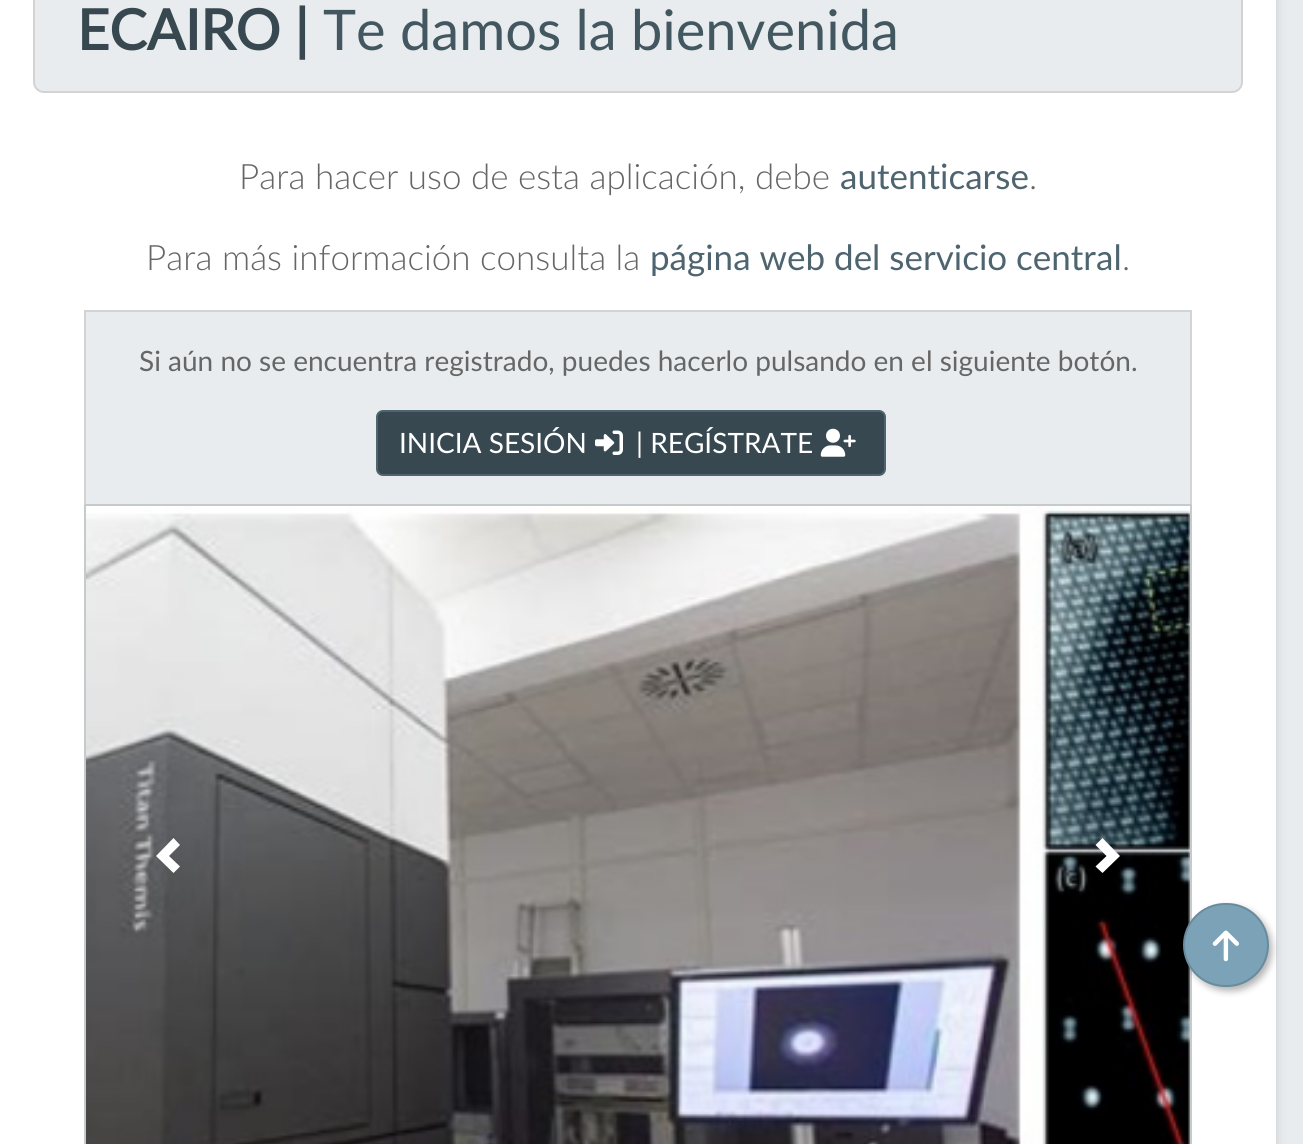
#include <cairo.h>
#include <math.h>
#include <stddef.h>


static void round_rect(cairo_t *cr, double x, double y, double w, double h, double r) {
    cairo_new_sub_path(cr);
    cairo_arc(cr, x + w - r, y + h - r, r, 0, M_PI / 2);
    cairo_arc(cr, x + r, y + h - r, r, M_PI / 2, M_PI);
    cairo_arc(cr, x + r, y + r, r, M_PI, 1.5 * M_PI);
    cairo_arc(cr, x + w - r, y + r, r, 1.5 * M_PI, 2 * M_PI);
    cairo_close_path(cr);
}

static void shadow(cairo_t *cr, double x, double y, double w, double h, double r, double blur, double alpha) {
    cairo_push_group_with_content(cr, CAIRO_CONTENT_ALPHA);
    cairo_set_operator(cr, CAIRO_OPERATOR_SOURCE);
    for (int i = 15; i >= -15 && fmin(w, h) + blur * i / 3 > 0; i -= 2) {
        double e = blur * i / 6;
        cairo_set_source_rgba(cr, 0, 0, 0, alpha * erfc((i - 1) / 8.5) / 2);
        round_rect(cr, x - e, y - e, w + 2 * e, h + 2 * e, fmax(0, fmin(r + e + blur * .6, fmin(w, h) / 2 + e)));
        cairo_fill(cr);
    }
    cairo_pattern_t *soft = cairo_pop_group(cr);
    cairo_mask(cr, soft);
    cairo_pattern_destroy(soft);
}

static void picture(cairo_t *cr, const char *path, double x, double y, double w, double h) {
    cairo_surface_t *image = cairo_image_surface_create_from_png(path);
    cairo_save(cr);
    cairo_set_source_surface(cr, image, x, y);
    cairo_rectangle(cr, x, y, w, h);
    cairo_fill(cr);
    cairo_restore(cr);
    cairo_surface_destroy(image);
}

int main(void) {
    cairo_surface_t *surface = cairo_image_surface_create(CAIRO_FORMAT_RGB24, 1303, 1144);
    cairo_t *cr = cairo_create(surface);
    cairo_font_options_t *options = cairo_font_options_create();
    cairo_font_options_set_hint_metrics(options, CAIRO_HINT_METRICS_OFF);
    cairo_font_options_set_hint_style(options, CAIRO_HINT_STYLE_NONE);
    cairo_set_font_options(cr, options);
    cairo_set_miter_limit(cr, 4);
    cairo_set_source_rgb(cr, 0.91, 0.922, 0.933);
    cairo_paint(cr);
    cairo_set_source_rgb(cr, 0, 0, 0);
    shadow(cr, 12, -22, 1262, 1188, 4, 6, 0.2);
    cairo_set_source_rgb(cr, 1, 1, 1);
    cairo_rectangle(cr, 0, 0, 1276, 1144);
    cairo_fill(cr);
    cairo_set_source_rgb(cr, 0.914, 0.925, 0.937);
    round_rect(cr, 34, -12, 1208, 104, 10);
    cairo_fill_preserve(cr);
    cairo_set_source_rgb(cr, 0.827, 0.827, 0.827);
    cairo_stroke(cr);
    cairo_select_font_face(cr, "Lato", CAIRO_FONT_SLANT_NORMAL, CAIRO_FONT_WEIGHT_BOLD);
    cairo_set_font_size(cr, 56);
    cairo_set_source_rgb(cr, 0.22, 0.282, 0.314);
    cairo_move_to(cr, 77, 50);
    cairo_show_text(cr, "ECAIRO |");
    cairo_select_font_face(cr, "Lato", CAIRO_FONT_SLANT_NORMAL, CAIRO_FONT_WEIGHT_NORMAL);
    cairo_set_source_rgb(cr, 0.263, 0.341, 0.376);
    cairo_move_to(cr, 323, 50);
    cairo_show_text(cr, "Te damos la bienvenida");
    cairo_select_font_face(cr, "Lato Light", CAIRO_FONT_SLANT_NORMAL, CAIRO_FONT_WEIGHT_NORMAL);
    cairo_set_font_size(cr, 35);
    cairo_set_source_rgb(cr, 0.4, 0.4, 0.4);
    cairo_move_to(cr, 239, 189);
    cairo_show_text(cr, "Para hacer uso de esta aplicación, debe");
    cairo_select_font_face(cr, "Lato", CAIRO_FONT_SLANT_NORMAL, CAIRO_FONT_WEIGHT_NORMAL);
    cairo_set_source_rgb(cr, 0.306, 0.396, 0.439);
    cairo_move_to(cr, 840, 189);
    cairo_show_text(cr, "autenticarse");
    cairo_select_font_face(cr, "Lato Light", CAIRO_FONT_SLANT_NORMAL, CAIRO_FONT_WEIGHT_NORMAL);
    cairo_set_source_rgb(cr, 0.4, 0.4, 0.4);
    cairo_move_to(cr, 1029, 189);
    cairo_show_text(cr, ".");
    cairo_move_to(cr, 146, 270);
    cairo_show_text(cr, "Para más información consulta la");
    cairo_select_font_face(cr, "Lato", CAIRO_FONT_SLANT_NORMAL, CAIRO_FONT_WEIGHT_NORMAL);
    cairo_set_source_rgb(cr, 0.306, 0.396, 0.439);
    cairo_move_to(cr, 650, 270);
    cairo_show_text(cr, "página web del servicio central");
    cairo_select_font_face(cr, "Lato Light", CAIRO_FONT_SLANT_NORMAL, CAIRO_FONT_WEIGHT_NORMAL);
    cairo_set_source_rgb(cr, 0.4, 0.4, 0.4);
    cairo_move_to(cr, 1122, 270);
    cairo_show_text(cr, ".");
    cairo_set_source_rgb(cr, 0.914, 0.925, 0.937);
    cairo_rectangle(cr, 86, 312, 1104, 192);
    cairo_fill(cr);
    cairo_set_source_rgb(cr, 0.827, 0.827, 0.827);
    cairo_rectangle(cr, 84, 310, 1108, 2);
    cairo_fill(cr);
    cairo_rectangle(cr, 1190, 310, 2, 194);
    cairo_fill(cr);
    cairo_rectangle(cr, 84, 310, 2, 194);
    cairo_fill(cr);
    cairo_select_font_face(cr, "Lato", CAIRO_FONT_SLANT_NORMAL, CAIRO_FONT_WEIGHT_NORMAL);
    cairo_set_font_size(cr, 28);
    cairo_set_source_rgb(cr, 0.4, 0.4, 0.4);
    cairo_move_to(cr, 139, 371);
    cairo_show_text(cr, "Si aún no se encuentra registrado, puedes hacerlo pulsando en el siguiente botón.");
    cairo_set_source_rgb(cr, 0.22, 0.282, 0.314);
    round_rect(cr, 377, 411, 508, 64, 6);
    cairo_fill_preserve(cr);
    cairo_set_source_rgb(cr, 0.306, 0.396, 0.439);
    cairo_stroke(cr);
    cairo_set_source_rgb(cr, 1, 1, 1);
    cairo_move_to(cr, 399, 453);
    cairo_show_text(cr, "INICIA SESIÓN");
    picture(cr, "img1.png", 595, 430, 28, 25);
    cairo_move_to(cr, 636, 453);
    cairo_show_text(cr, "| REGÍSTRATE");
    picture(cr, "img2.png", 820, 428, 36, 29);
    cairo_rectangle(cr, 85, 505, 1106, 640);
    cairo_set_source_rgb(cr, 0.773, 0.792, 0.804);
    cairo_stroke(cr);
    picture(cr, "img3.png", 86, 506, 1104, 638);
    cairo_set_source_rgb(cr, 1, 1, 1);
    cairo_new_path(cr);
    cairo_move_to(cr, 173.5, 838);
    cairo_line_to(cr, 156, 856);
    cairo_line_to(cr, 173.5, 873);
    cairo_line_to(cr, 180, 866.5);
    cairo_line_to(cr, 169, 856);
    cairo_line_to(cr, 180, 845);
    cairo_close_path(cr);
    cairo_fill(cr);
    cairo_new_path(cr);
    cairo_move_to(cr, 1102.5, 838);
    cairo_line_to(cr, 1095.5, 845);
    cairo_line_to(cr, 1106.5, 856);
    cairo_line_to(cr, 1095.5, 866.5);
    cairo_line_to(cr, 1102.5, 873);
    cairo_line_to(cr, 1120, 856);
    cairo_close_path(cr);
    cairo_fill(cr);
    cairo_set_source_rgb(cr, 0, 0, 0);
    shadow(cr, 1187, 907, 85, 84, 42, 3.5, 0.3);
    cairo_set_source_rgb(cr, 0.482, 0.635, 0.718);
    round_rect(cr, 1184, 904, 84, 82, 41);
    cairo_fill_preserve(cr);
    cairo_set_source_rgb(cr, 0.408, 0.545, 0.62);
    cairo_stroke(cr);
    picture(cr, "img4.png", 1212, 930, 27, 32);
    cairo_surface_write_to_png(surface, "page.png");
    cairo_font_options_destroy(options);
    cairo_destroy(cr);
    cairo_surface_destroy(surface);
    return 0;
}
